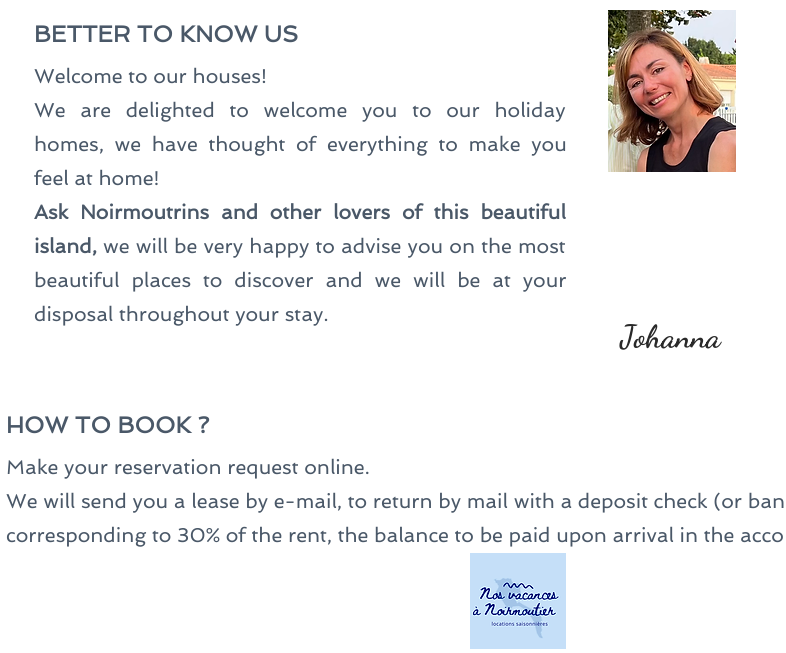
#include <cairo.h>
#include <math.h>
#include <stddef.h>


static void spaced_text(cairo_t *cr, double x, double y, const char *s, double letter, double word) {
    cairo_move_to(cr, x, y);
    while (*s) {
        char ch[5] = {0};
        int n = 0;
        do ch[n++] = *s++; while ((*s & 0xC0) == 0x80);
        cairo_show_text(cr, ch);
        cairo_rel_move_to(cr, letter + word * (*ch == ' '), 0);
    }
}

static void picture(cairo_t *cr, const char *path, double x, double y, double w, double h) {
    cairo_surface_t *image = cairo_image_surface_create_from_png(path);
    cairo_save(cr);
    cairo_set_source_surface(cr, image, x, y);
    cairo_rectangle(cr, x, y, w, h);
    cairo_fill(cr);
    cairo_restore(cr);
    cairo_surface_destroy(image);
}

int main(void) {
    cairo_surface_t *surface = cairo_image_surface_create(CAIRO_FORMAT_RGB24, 786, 653);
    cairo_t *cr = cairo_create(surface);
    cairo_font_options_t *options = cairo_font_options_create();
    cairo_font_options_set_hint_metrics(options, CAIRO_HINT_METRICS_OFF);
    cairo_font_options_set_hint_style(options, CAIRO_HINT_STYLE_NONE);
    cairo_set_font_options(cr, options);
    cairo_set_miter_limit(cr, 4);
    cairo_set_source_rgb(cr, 1, 1, 1);
    cairo_paint(cr);
    cairo_select_font_face(cr, "Spinnaker", CAIRO_FONT_SLANT_NORMAL, CAIRO_FONT_WEIGHT_BOLD);
    cairo_set_font_size(cr, 23);
    cairo_set_source_rgb(cr, 0.29, 0.345, 0.408);
    cairo_move_to(cr, 34, 42);
    cairo_show_text(cr, "BETTER TO KNOW US");
    cairo_select_font_face(cr, "Spinnaker", CAIRO_FONT_SLANT_NORMAL, CAIRO_FONT_WEIGHT_NORMAL);
    cairo_set_font_size(cr, 20);
    cairo_move_to(cr, 34, 83);
    cairo_show_text(cr, "Welcome to our houses!");
    spaced_text(cr, 34, 117, "We are delighted to welcome you to our holiday", 0, 9);
    spaced_text(cr, 34, 151, "homes, we have thought of everything to make you", 0, 5);
    cairo_move_to(cr, 34, 185);
    cairo_show_text(cr, "feel at home!");
    cairo_select_font_face(cr, "Spinnaker", CAIRO_FONT_SLANT_NORMAL, CAIRO_FONT_WEIGHT_BOLD);
    spaced_text(cr, 34, 219, "Ask Noirmoutrins and other lovers of this beautiful", 0, 6);
    cairo_move_to(cr, 34, 253);
    cairo_show_text(cr, "island,");
    cairo_select_font_face(cr, "Spinnaker", CAIRO_FONT_SLANT_NORMAL, CAIRO_FONT_WEIGHT_NORMAL);
    spaced_text(cr, 103, 253, "we will be very happy to advise you on the most", 0, 0.5);
    spaced_text(cr, 34, 287, "beautiful places to discover and we will be at your", 0, 6.25);
    cairo_move_to(cr, 34, 321);
    cairo_show_text(cr, "disposal throughout your stay.");
    picture(cr, "img1.png", 608, 10, 128, 162);
    cairo_select_font_face(cr, "Dancing Script", CAIRO_FONT_SLANT_NORMAL, CAIRO_FONT_WEIGHT_BOLD);
    cairo_set_font_size(cr, 32);
    cairo_set_source_rgb(cr, 0.161, 0.161, 0.161);
    cairo_move_to(cr, 620, 347);
    cairo_show_text(cr, "Johanna");
    cairo_select_font_face(cr, "Spinnaker", CAIRO_FONT_SLANT_NORMAL, CAIRO_FONT_WEIGHT_BOLD);
    cairo_set_font_size(cr, 23);
    cairo_set_source_rgb(cr, 0.29, 0.345, 0.408);
    cairo_move_to(cr, 6, 433);
    cairo_show_text(cr, "HOW TO BOOK ?");
    cairo_select_font_face(cr, "Spinnaker", CAIRO_FONT_SLANT_NORMAL, CAIRO_FONT_WEIGHT_NORMAL);
    cairo_set_font_size(cr, 20);
    cairo_move_to(cr, 6, 474);
    cairo_show_text(cr, "Make your reservation request online.");
    cairo_move_to(cr, 6, 508);
    cairo_show_text(cr, "We will send you a lease by e-mail, to return by mail with a deposit check (or ban");
    cairo_move_to(cr, 6, 542);
    cairo_show_text(cr, "corresponding to 30% of the rent, the balance to be paid upon arrival in the acco");
    picture(cr, "img2.png", 470, 553, 96, 96);
    cairo_surface_write_to_png(surface, "page.png");
    cairo_font_options_destroy(options);
    cairo_destroy(cr);
    cairo_surface_destroy(surface);
    return 0;
}
